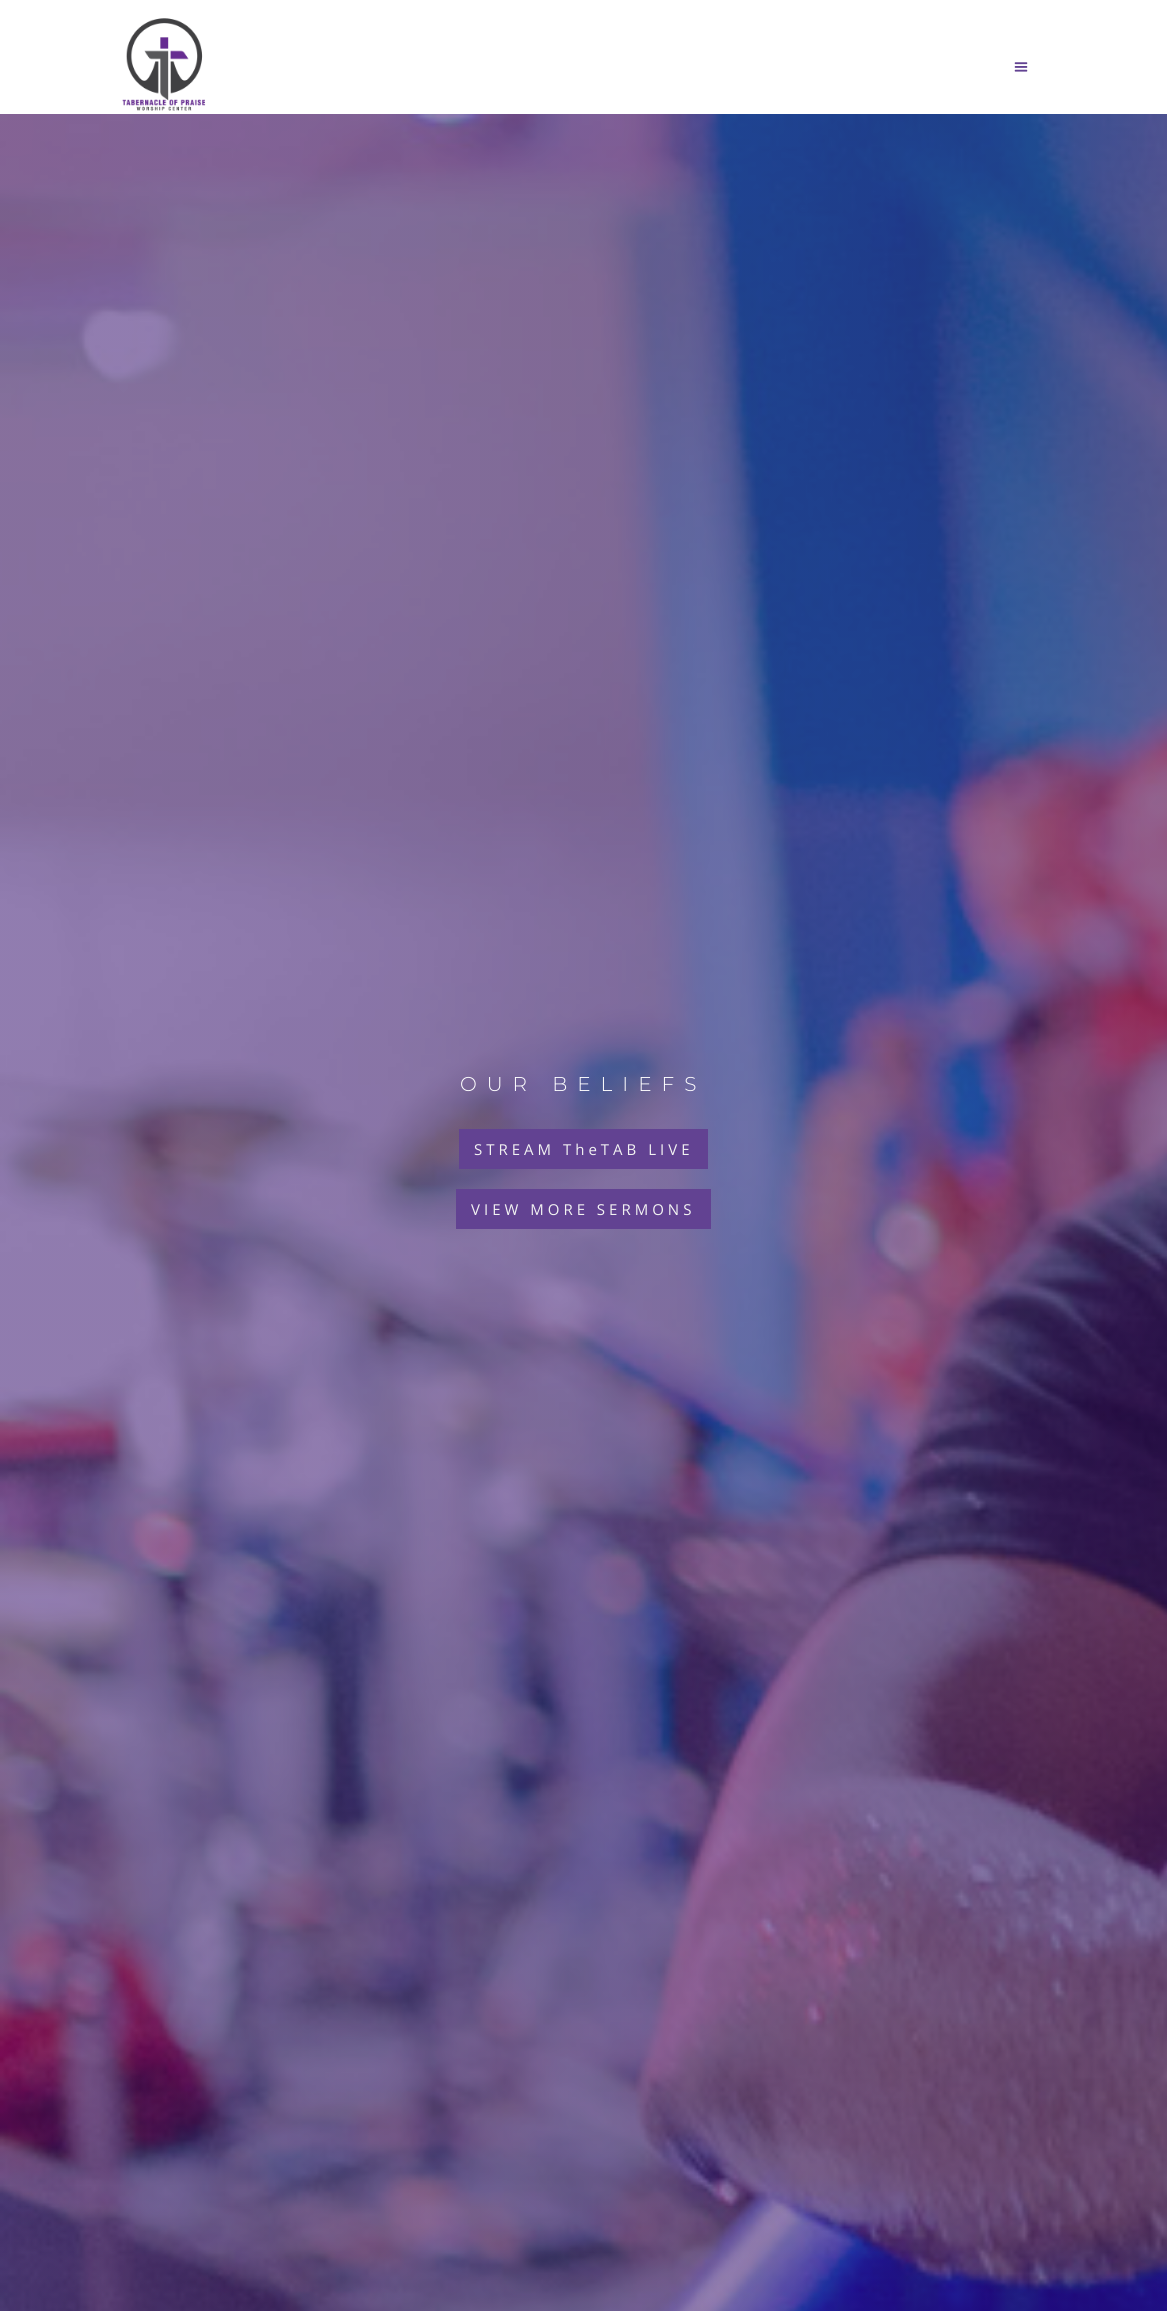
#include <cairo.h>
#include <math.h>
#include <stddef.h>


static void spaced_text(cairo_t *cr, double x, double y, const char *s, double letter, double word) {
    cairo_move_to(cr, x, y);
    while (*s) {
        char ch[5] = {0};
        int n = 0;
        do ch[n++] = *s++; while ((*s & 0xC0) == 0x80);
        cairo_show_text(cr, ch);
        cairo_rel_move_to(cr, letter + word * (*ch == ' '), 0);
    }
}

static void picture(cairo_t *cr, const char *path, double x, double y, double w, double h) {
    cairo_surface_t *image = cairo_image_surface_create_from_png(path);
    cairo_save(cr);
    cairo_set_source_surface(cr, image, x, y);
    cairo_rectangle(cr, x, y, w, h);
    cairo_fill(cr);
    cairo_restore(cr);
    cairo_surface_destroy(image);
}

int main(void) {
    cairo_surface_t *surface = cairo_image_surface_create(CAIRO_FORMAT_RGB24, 1167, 2311);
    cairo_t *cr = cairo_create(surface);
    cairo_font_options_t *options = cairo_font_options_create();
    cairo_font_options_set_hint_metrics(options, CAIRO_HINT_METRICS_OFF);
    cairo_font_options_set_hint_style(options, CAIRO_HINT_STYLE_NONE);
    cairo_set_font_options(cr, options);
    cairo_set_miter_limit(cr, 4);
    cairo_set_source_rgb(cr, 1, 1, 1);
    cairo_paint(cr);
    picture(cr, "img1.png", 122, 18, 84, 93);
    picture(cr, "img2.png", 1014, 62, 14, 10);
    picture(cr, "img3.png", 0, 114, 1167, 2197);
    cairo_select_font_face(cr, "Montserrat Light", CAIRO_FONT_SLANT_NORMAL, CAIRO_FONT_WEIGHT_NORMAL);
    cairo_set_font_size(cr, 20);
    cairo_set_source_rgb(cr, 1, 1, 1);
    spaced_text(cr, 460, 1091, "OUR BELIEFS", 10, 0);
    cairo_set_source_rgb(cr, 0.384, 0.259, 0.573);
    cairo_rectangle(cr, 459, 1129, 249, 40);
    cairo_fill(cr);
    cairo_select_font_face(cr, "Open Sans", CAIRO_FONT_SLANT_NORMAL, CAIRO_FONT_WEIGHT_NORMAL);
    cairo_set_font_size(cr, 15);
    cairo_set_source_rgb(cr, 0.949, 0.949, 0.949);
    spaced_text(cr, 474, 1155, "STREAM TheTAB LIVE", 4, 0);
    cairo_set_source_rgb(cr, 0.384, 0.259, 0.573);
    cairo_rectangle(cr, 456, 1189, 255, 40);
    cairo_fill(cr);
    cairo_set_source_rgb(cr, 0.949, 0.949, 0.949);
    spaced_text(cr, 471, 1215, "VIEW MORE SERMONS", 4, 0);
    cairo_surface_write_to_png(surface, "page.png");
    cairo_font_options_destroy(options);
    cairo_destroy(cr);
    cairo_surface_destroy(surface);
    return 0;
}
